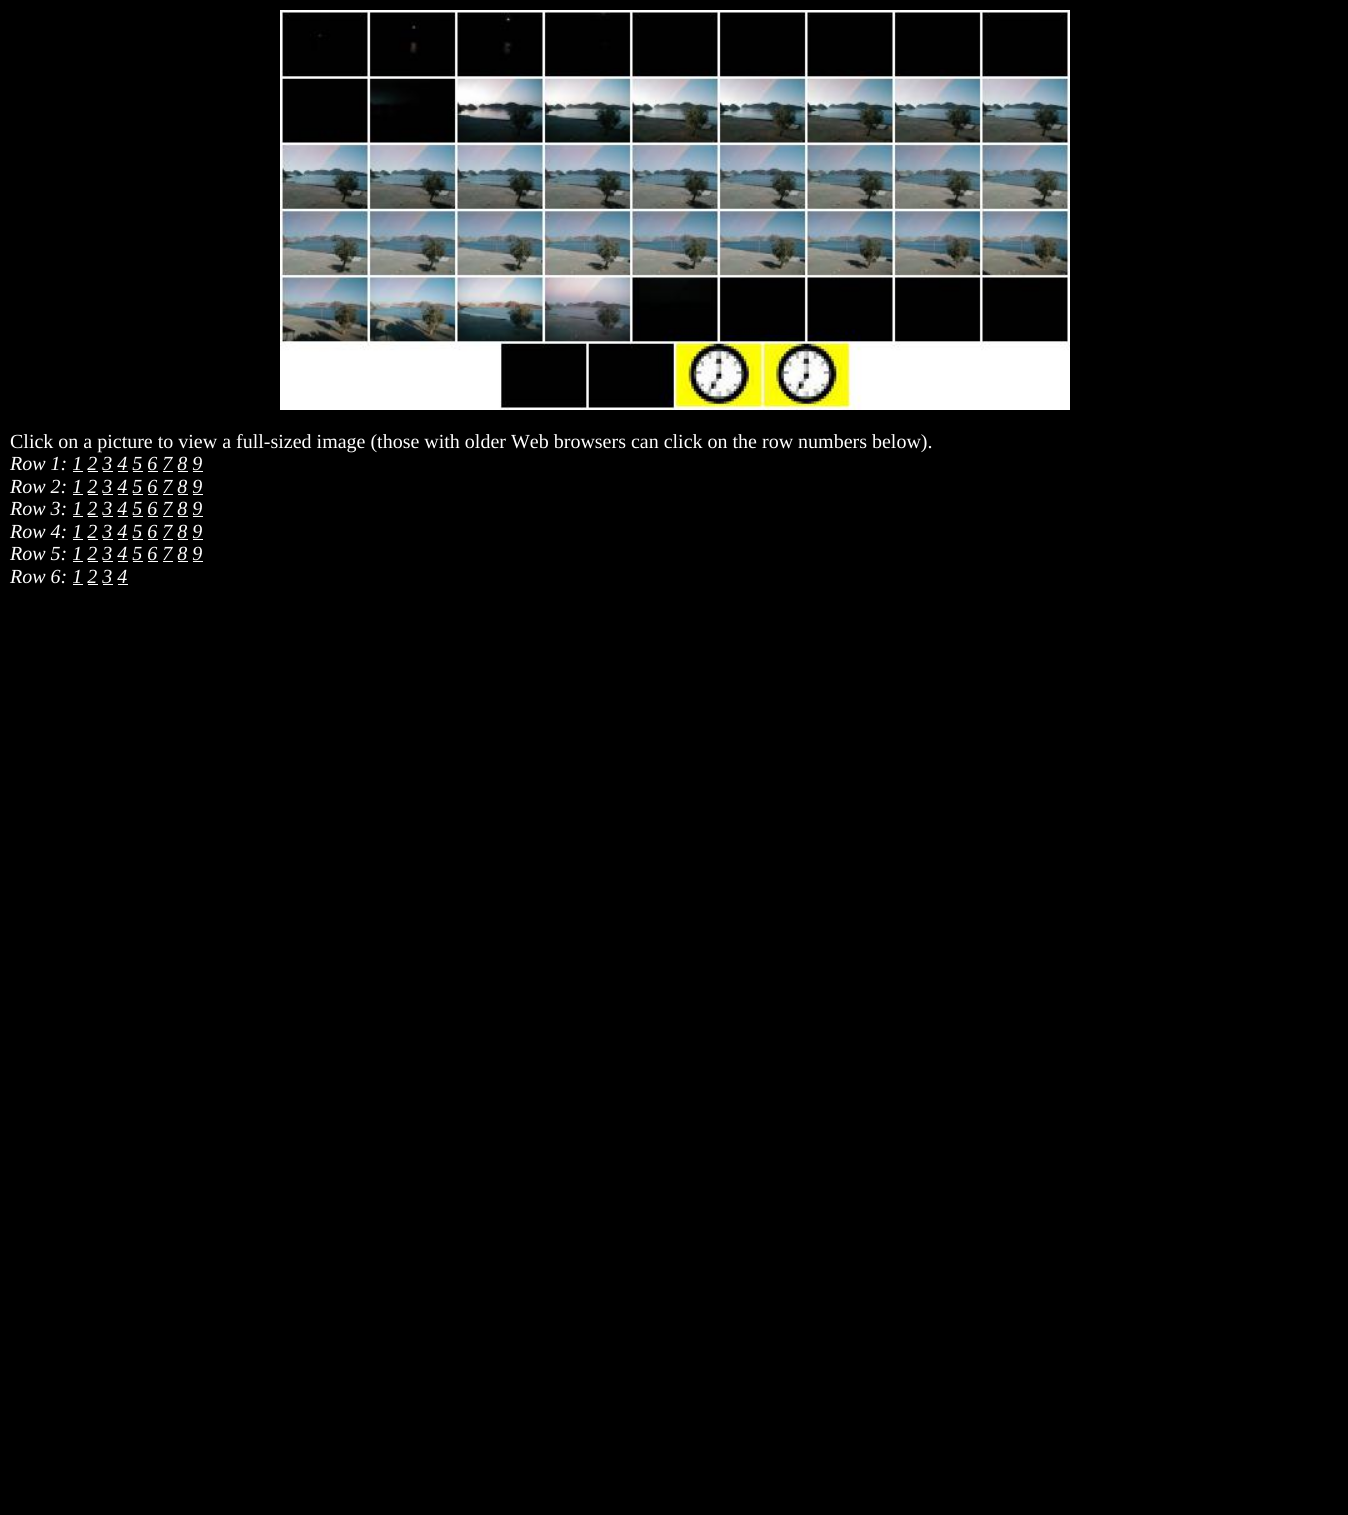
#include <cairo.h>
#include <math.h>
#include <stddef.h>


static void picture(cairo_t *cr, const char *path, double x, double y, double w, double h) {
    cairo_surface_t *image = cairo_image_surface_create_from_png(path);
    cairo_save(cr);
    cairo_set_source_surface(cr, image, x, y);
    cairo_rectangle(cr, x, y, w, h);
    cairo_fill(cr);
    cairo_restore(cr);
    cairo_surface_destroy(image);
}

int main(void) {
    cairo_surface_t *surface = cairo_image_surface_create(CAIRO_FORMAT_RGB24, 1348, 1515);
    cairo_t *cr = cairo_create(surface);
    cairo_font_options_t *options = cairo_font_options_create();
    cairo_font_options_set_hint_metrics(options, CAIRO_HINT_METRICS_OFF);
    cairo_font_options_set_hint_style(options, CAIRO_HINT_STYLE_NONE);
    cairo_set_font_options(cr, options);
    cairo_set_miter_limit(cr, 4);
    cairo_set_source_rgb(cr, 0, 0, 0);
    cairo_paint(cr);
    picture(cr, "img1.png", 280, 10, 790, 400);
    cairo_select_font_face(cr, "Liberation Serif", CAIRO_FONT_SLANT_NORMAL, CAIRO_FONT_WEIGHT_NORMAL);
    cairo_set_font_size(cr, 20);
    cairo_set_source_rgb(cr, 1, 1, 1);
    cairo_move_to(cr, 10, 448);
    cairo_show_text(cr, "Click on a picture to view a full-sized image (those with older Web browsers can click on the row numbers below).");
    cairo_select_font_face(cr, "Liberation Serif", CAIRO_FONT_SLANT_ITALIC, CAIRO_FONT_WEIGHT_NORMAL);
    cairo_move_to(cr, 10, 470);
    cairo_show_text(cr, "Row 1: 1 2 3 4 5 6 7 8 9");
    cairo_rectangle(cr, 73, 471, 10, 1);
    cairo_fill(cr);
    cairo_rectangle(cr, 88, 471, 10, 1);
    cairo_fill(cr);
    cairo_rectangle(cr, 103, 471, 10, 1);
    cairo_fill(cr);
    cairo_rectangle(cr, 118, 471, 10, 1);
    cairo_fill(cr);
    cairo_rectangle(cr, 133, 471, 10, 1);
    cairo_fill(cr);
    cairo_rectangle(cr, 148, 471, 10, 1);
    cairo_fill(cr);
    cairo_rectangle(cr, 163, 471, 10, 1);
    cairo_fill(cr);
    cairo_rectangle(cr, 178, 471, 10, 1);
    cairo_fill(cr);
    cairo_rectangle(cr, 193, 471, 10, 1);
    cairo_fill(cr);
    cairo_move_to(cr, 10, 493);
    cairo_show_text(cr, "Row 2: 1 2 3 4 5 6 7 8 9");
    cairo_rectangle(cr, 73, 494, 10, 1);
    cairo_fill(cr);
    cairo_rectangle(cr, 88, 494, 10, 1);
    cairo_fill(cr);
    cairo_rectangle(cr, 103, 494, 10, 1);
    cairo_fill(cr);
    cairo_rectangle(cr, 118, 494, 10, 1);
    cairo_fill(cr);
    cairo_rectangle(cr, 133, 494, 10, 1);
    cairo_fill(cr);
    cairo_rectangle(cr, 148, 494, 10, 1);
    cairo_fill(cr);
    cairo_rectangle(cr, 163, 494, 10, 1);
    cairo_fill(cr);
    cairo_rectangle(cr, 178, 494, 10, 1);
    cairo_fill(cr);
    cairo_rectangle(cr, 193, 494, 10, 1);
    cairo_fill(cr);
    cairo_move_to(cr, 10, 515);
    cairo_show_text(cr, "Row 3: 1 2 3 4 5 6 7 8 9");
    cairo_rectangle(cr, 73, 516, 10, 1);
    cairo_fill(cr);
    cairo_rectangle(cr, 88, 516, 10, 1);
    cairo_fill(cr);
    cairo_rectangle(cr, 103, 516, 10, 1);
    cairo_fill(cr);
    cairo_rectangle(cr, 118, 516, 10, 1);
    cairo_fill(cr);
    cairo_rectangle(cr, 133, 516, 10, 1);
    cairo_fill(cr);
    cairo_rectangle(cr, 148, 516, 10, 1);
    cairo_fill(cr);
    cairo_rectangle(cr, 163, 516, 10, 1);
    cairo_fill(cr);
    cairo_rectangle(cr, 178, 516, 10, 1);
    cairo_fill(cr);
    cairo_rectangle(cr, 193, 516, 10, 1);
    cairo_fill(cr);
    cairo_move_to(cr, 10, 538);
    cairo_show_text(cr, "Row 4: 1 2 3 4 5 6 7 8 9");
    cairo_rectangle(cr, 73, 539, 10, 1);
    cairo_fill(cr);
    cairo_rectangle(cr, 88, 539, 10, 1);
    cairo_fill(cr);
    cairo_rectangle(cr, 103, 539, 10, 1);
    cairo_fill(cr);
    cairo_rectangle(cr, 118, 539, 10, 1);
    cairo_fill(cr);
    cairo_rectangle(cr, 133, 539, 10, 1);
    cairo_fill(cr);
    cairo_rectangle(cr, 148, 539, 10, 1);
    cairo_fill(cr);
    cairo_rectangle(cr, 163, 539, 10, 1);
    cairo_fill(cr);
    cairo_rectangle(cr, 178, 539, 10, 1);
    cairo_fill(cr);
    cairo_rectangle(cr, 193, 539, 10, 1);
    cairo_fill(cr);
    cairo_move_to(cr, 10, 560);
    cairo_show_text(cr, "Row 5: 1 2 3 4 5 6 7 8 9");
    cairo_rectangle(cr, 73, 561, 10, 1);
    cairo_fill(cr);
    cairo_rectangle(cr, 88, 561, 10, 1);
    cairo_fill(cr);
    cairo_rectangle(cr, 103, 561, 10, 1);
    cairo_fill(cr);
    cairo_rectangle(cr, 118, 561, 10, 1);
    cairo_fill(cr);
    cairo_rectangle(cr, 133, 561, 10, 1);
    cairo_fill(cr);
    cairo_rectangle(cr, 148, 561, 10, 1);
    cairo_fill(cr);
    cairo_rectangle(cr, 163, 561, 10, 1);
    cairo_fill(cr);
    cairo_rectangle(cr, 178, 561, 10, 1);
    cairo_fill(cr);
    cairo_rectangle(cr, 193, 561, 10, 1);
    cairo_fill(cr);
    cairo_move_to(cr, 10, 583);
    cairo_show_text(cr, "Row 6: 1 2 3 4");
    cairo_rectangle(cr, 73, 584, 10, 1);
    cairo_fill(cr);
    cairo_rectangle(cr, 88, 584, 10, 1);
    cairo_fill(cr);
    cairo_rectangle(cr, 103, 584, 10, 1);
    cairo_fill(cr);
    cairo_rectangle(cr, 118, 584, 10, 1);
    cairo_fill(cr);
    cairo_surface_write_to_png(surface, "page.png");
    cairo_font_options_destroy(options);
    cairo_destroy(cr);
    cairo_surface_destroy(surface);
    return 0;
}
